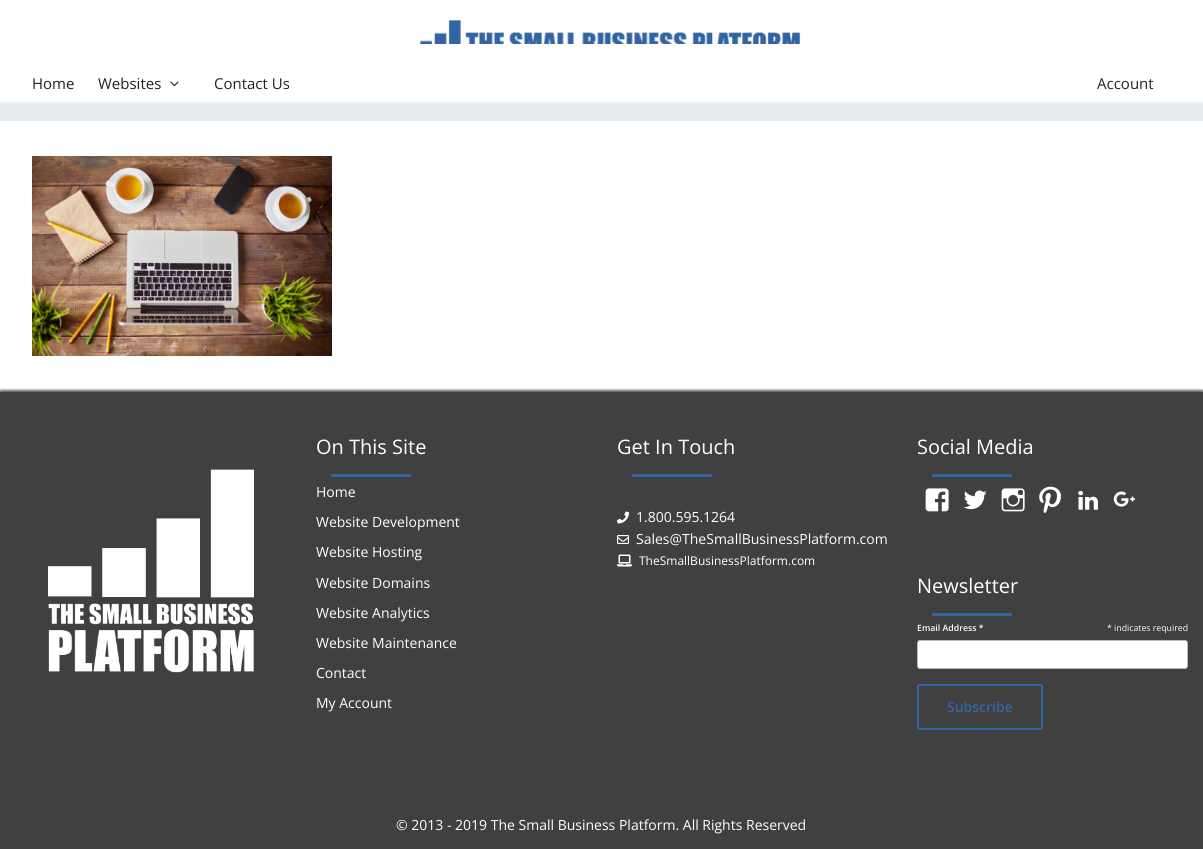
#include <cairo.h>
#include <math.h>
#include <stddef.h>


static void round_rect(cairo_t *cr, double x, double y, double w, double h, double r) {
    cairo_new_sub_path(cr);
    cairo_arc(cr, x + w - r, y + h - r, r, 0, M_PI / 2);
    cairo_arc(cr, x + r, y + h - r, r, M_PI / 2, M_PI);
    cairo_arc(cr, x + r, y + r, r, M_PI, 1.5 * M_PI);
    cairo_arc(cr, x + w - r, y + r, r, 1.5 * M_PI, 2 * M_PI);
    cairo_close_path(cr);
}

static void shadow(cairo_t *cr, double x, double y, double w, double h, double r, double blur, double alpha) {
    cairo_push_group_with_content(cr, CAIRO_CONTENT_ALPHA);
    cairo_set_operator(cr, CAIRO_OPERATOR_SOURCE);
    for (int i = 15; i >= -15 && fmin(w, h) + blur * i / 3 > 0; i -= 2) {
        double e = blur * i / 6;
        cairo_set_source_rgba(cr, 0, 0, 0, alpha * erfc((i - 1) / 8.5) / 2);
        round_rect(cr, x - e, y - e, w + 2 * e, h + 2 * e, fmax(0, fmin(r + e + blur * .6, fmin(w, h) / 2 + e)));
        cairo_fill(cr);
    }
    cairo_pattern_t *soft = cairo_pop_group(cr);
    cairo_mask(cr, soft);
    cairo_pattern_destroy(soft);
}

static void picture(cairo_t *cr, const char *path, double x, double y, double w, double h) {
    cairo_surface_t *image = cairo_image_surface_create_from_png(path);
    cairo_save(cr);
    cairo_set_source_surface(cr, image, x, y);
    cairo_rectangle(cr, x, y, w, h);
    cairo_fill(cr);
    cairo_restore(cr);
    cairo_surface_destroy(image);
}

int main(void) {
    cairo_surface_t *surface = cairo_image_surface_create(CAIRO_FORMAT_RGB24, 1203, 849);
    cairo_t *cr = cairo_create(surface);
    cairo_font_options_t *options = cairo_font_options_create();
    cairo_font_options_set_hint_metrics(options, CAIRO_HINT_METRICS_OFF);
    cairo_font_options_set_hint_style(options, CAIRO_HINT_STYLE_NONE);
    cairo_set_font_options(cr, options);
    cairo_set_miter_limit(cr, 4);
    cairo_set_source_rgb(cr, 1, 1, 1);
    cairo_paint(cr);
    picture(cr, "img1.png", 420, 20, 381, 24);
    cairo_set_source_rgb(cr, 0.933, 0.933, 0.933);
    cairo_rectangle(cr, 0, 102, 1203, 1);
    cairo_fill(cr);
    cairo_select_font_face(cr, "Open Sans", CAIRO_FONT_SLANT_NORMAL, CAIRO_FONT_WEIGHT_NORMAL);
    cairo_set_font_size(cr, 15);
    cairo_set_source_rgb(cr, 0.133, 0.133, 0.133);
    cairo_move_to(cr, 32, 89);
    cairo_show_text(cr, "Home");
    cairo_move_to(cr, 98, 89);
    cairo_show_text(cr, "Websites");
    picture(cr, "img2.png", 170, 81, 9, 6);
    cairo_move_to(cr, 214, 89);
    cairo_show_text(cr, "Contact Us");
    cairo_move_to(cr, 1097, 89);
    cairo_show_text(cr, "Account");
    cairo_set_source_rgb(cr, 0.914, 0.925, 0.937);
    cairo_rectangle(cr, 0, 103, 1203, 18);
    cairo_fill(cr);
    picture(cr, "img3.png", 32, 156, 300, 200);
    cairo_set_source_rgb(cr, 0, 0, 0);
    shadow(cr, 0, 390, 1203, 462, 0, 1, 0.6);
    cairo_set_source_rgb(cr, 0.251, 0.251, 0.251);
    cairo_rectangle(cr, 0, 392, 1203, 457);
    cairo_fill(cr);
    picture(cr, "img4.png", 48, 469, 206, 204);
    cairo_set_font_size(cr, 20);
    cairo_set_source_rgb(cr, 1, 1, 1);
    cairo_move_to(cr, 316, 454);
    cairo_show_text(cr, "On This Site");
    cairo_set_source_rgb(cr, 0.2, 0.396, 0.635);
    cairo_rectangle(cr, 331, 474, 80, 3);
    cairo_fill(cr);
    cairo_set_font_size(cr, 14);
    cairo_set_source_rgb(cr, 1, 1, 1);
    cairo_move_to(cr, 316, 497);
    cairo_show_text(cr, "Home");
    cairo_move_to(cr, 316, 527);
    cairo_show_text(cr, "Website Development");
    cairo_move_to(cr, 316, 557);
    cairo_show_text(cr, "Website Hosting");
    cairo_move_to(cr, 316, 588);
    cairo_show_text(cr, "Website Domains");
    cairo_move_to(cr, 316, 618);
    cairo_show_text(cr, "Website Analytics");
    cairo_move_to(cr, 316, 648);
    cairo_show_text(cr, "Website Maintenance");
    cairo_move_to(cr, 316, 678);
    cairo_show_text(cr, "Contact");
    cairo_move_to(cr, 316, 708);
    cairo_show_text(cr, "My Account");
    cairo_set_font_size(cr, 20);
    cairo_move_to(cr, 617, 454);
    cairo_show_text(cr, "Get In Touch");
    cairo_set_source_rgb(cr, 0.2, 0.396, 0.635);
    cairo_rectangle(cr, 632, 474, 80, 3);
    cairo_fill(cr);
    picture(cr, "img5.png", 617, 511, 12, 13);
    cairo_set_font_size(cr, 14);
    cairo_set_source_rgb(cr, 1, 1, 1);
    cairo_move_to(cr, 636, 522);
    cairo_show_text(cr, "1.800.595.1264");
    picture(cr, "img6.png", 617, 535, 12, 9);
    cairo_move_to(cr, 636, 544);
    cairo_show_text(cr, "Sales@TheSmallBusinessPlatform.com");
    picture(cr, "img7.png", 617, 554, 15, 13);
    cairo_set_font_size(cr, 12);
    cairo_move_to(cr, 639, 565);
    cairo_show_text(cr, "TheSmallBusinessPlatform.com");
    cairo_set_font_size(cr, 20);
    cairo_move_to(cr, 917, 454);
    cairo_show_text(cr, "Social Media");
    cairo_set_source_rgb(cr, 0.2, 0.396, 0.635);
    cairo_rectangle(cr, 932, 474, 80, 3);
    cairo_fill(cr);
    picture(cr, "img8.png", 925, 488, 24, 24);
    picture(cr, "img9.png", 963, 490, 24, 20);
    picture(cr, "img10.png", 1001, 488, 24, 24);
    picture(cr, "img11.png", 1039, 486, 22, 27);
    picture(cr, "img12.png", 1078, 490, 20, 20);
    picture(cr, "img13.png", 1113, 491, 22, 16);
    cairo_set_source_rgb(cr, 1, 1, 1);
    cairo_move_to(cr, 917, 593);
    cairo_show_text(cr, "Newsletter");
    cairo_set_source_rgb(cr, 0.2, 0.396, 0.635);
    cairo_rectangle(cr, 932, 613, 80, 3);
    cairo_fill(cr);
    cairo_select_font_face(cr, "Open Sans SemiBold", CAIRO_FONT_SLANT_NORMAL, CAIRO_FONT_WEIGHT_NORMAL);
    cairo_set_font_size(cr, 8.75);
    cairo_set_source_rgb(cr, 1, 1, 1);
    cairo_move_to(cr, 917, 631);
    cairo_show_text(cr, "Email Address *");
    round_rect(cr, 917.5, 640.5, 270, 28, 2.5);
    cairo_fill_preserve(cr);
    cairo_set_source_rgb(cr, 0.733, 0.733, 0.733);
    cairo_set_line_width(cr, 1);
    cairo_stroke(cr);
    cairo_select_font_face(cr, "Open Sans", CAIRO_FONT_SLANT_NORMAL, CAIRO_FONT_WEIGHT_NORMAL);
    cairo_set_source_rgb(cr, 1, 1, 1);
    cairo_move_to(cr, 1107, 631);
    cairo_show_text(cr, "* indicates required");
    round_rect(cr, 918, 685, 124, 44, 1);
    cairo_set_source_rgb(cr, 0.2, 0.396, 0.635);
    cairo_set_line_width(cr, 2);
    cairo_stroke(cr);
    cairo_select_font_face(cr, "Open Sans SemiBold", CAIRO_FONT_SLANT_NORMAL, CAIRO_FONT_WEIGHT_NORMAL);
    cairo_set_font_size(cr, 14);
    cairo_move_to(cr, 947, 712);
    cairo_show_text(cr, "Subscribe");
    cairo_select_font_face(cr, "Open Sans", CAIRO_FONT_SLANT_NORMAL, CAIRO_FONT_WEIGHT_NORMAL);
    cairo_set_source_rgb(cr, 1, 1, 1);
    cairo_move_to(cr, 396, 830);
    cairo_show_text(cr, "© 2013 - 2019 The Small Business Platform. All Rights Reserved");
    cairo_surface_write_to_png(surface, "page.png");
    cairo_font_options_destroy(options);
    cairo_destroy(cr);
    cairo_surface_destroy(surface);
    return 0;
}
